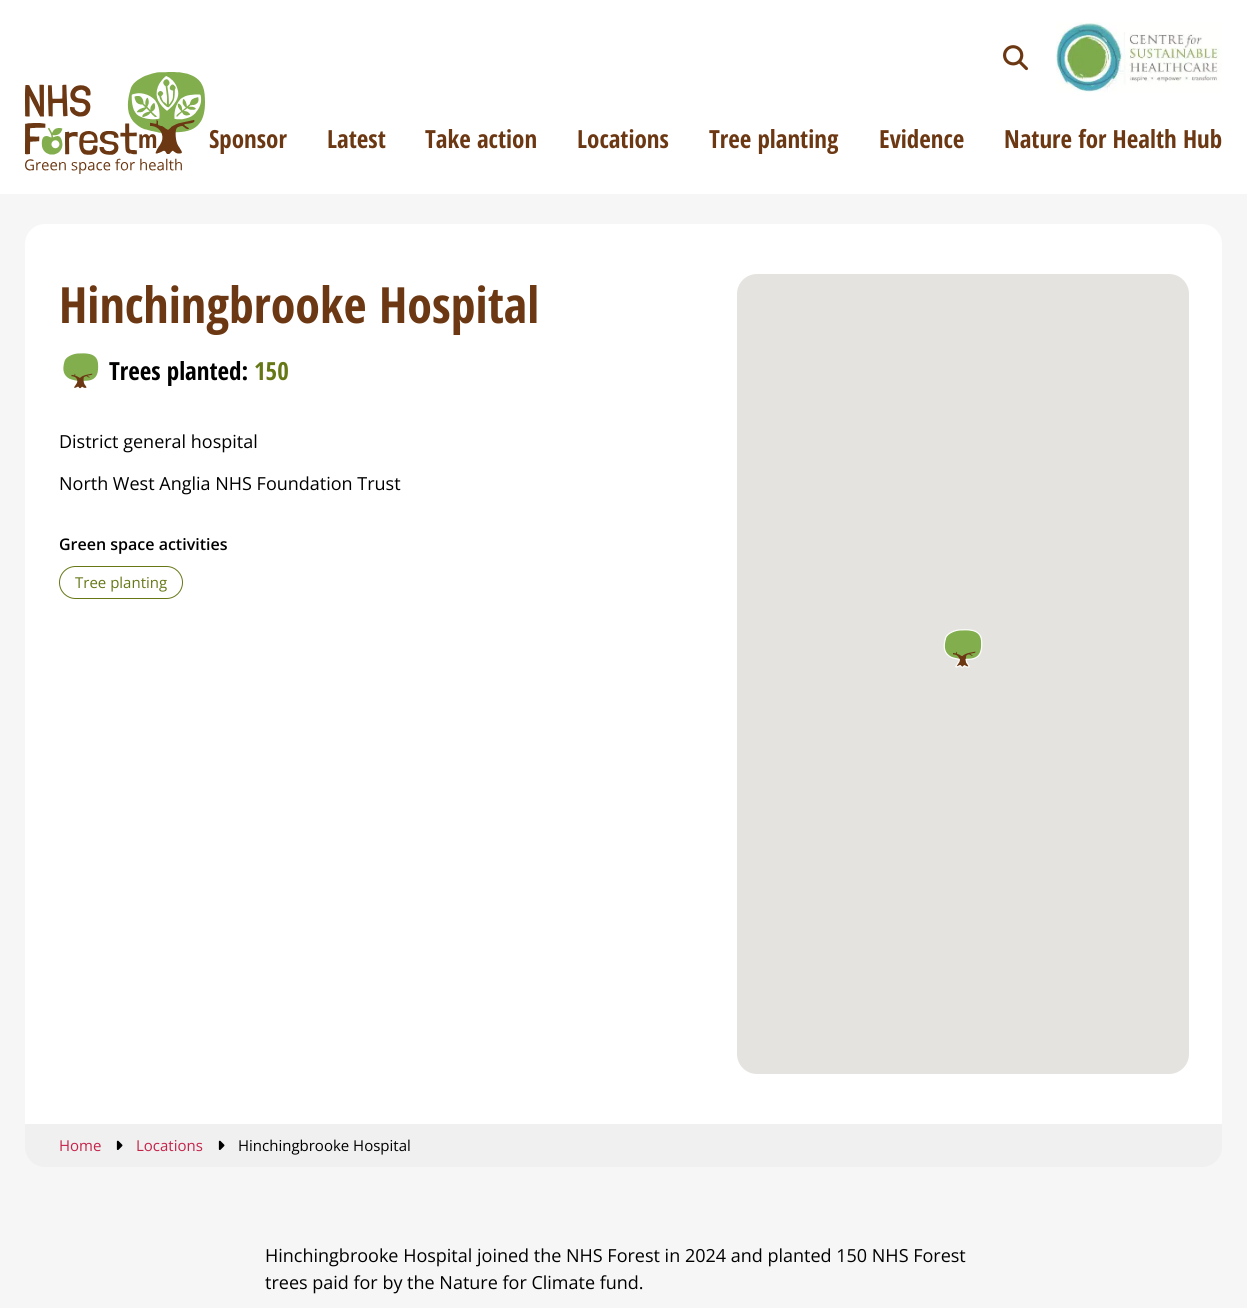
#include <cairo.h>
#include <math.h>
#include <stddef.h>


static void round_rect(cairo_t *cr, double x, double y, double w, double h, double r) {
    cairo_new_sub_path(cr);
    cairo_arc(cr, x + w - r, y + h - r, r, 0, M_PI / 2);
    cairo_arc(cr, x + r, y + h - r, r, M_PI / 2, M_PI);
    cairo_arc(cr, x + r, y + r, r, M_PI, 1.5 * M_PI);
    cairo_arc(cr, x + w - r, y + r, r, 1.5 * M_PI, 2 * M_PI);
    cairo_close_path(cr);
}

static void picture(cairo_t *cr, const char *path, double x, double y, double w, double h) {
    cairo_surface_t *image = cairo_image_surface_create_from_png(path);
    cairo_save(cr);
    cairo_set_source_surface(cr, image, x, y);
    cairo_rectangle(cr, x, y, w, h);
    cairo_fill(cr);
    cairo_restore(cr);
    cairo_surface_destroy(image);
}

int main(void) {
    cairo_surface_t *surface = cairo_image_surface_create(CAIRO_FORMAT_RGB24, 1247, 1308);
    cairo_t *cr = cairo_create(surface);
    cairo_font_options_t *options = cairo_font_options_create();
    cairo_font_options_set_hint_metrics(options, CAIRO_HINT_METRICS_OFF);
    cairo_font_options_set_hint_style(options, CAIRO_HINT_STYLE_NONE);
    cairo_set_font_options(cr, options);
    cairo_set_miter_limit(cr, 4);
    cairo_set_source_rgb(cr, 1, 1, 1);
    cairo_paint(cr);
    picture(cr, "img1.png", 25, 72, 180, 102);
    picture(cr, "img2.png", 1003, 45, 25, 26);
    picture(cr, "img3.png", 1056, 22, 166, 71);
    cairo_select_font_face(cr, "Open Sans Condensed", CAIRO_FONT_SLANT_NORMAL, CAIRO_FONT_WEIGHT_BOLD);
    cairo_set_font_size(cr, 25);
    cairo_set_source_rgb(cr, 0.42, 0.22, 0.075);
    cairo_move_to(cr, 138, 148);
    cairo_show_text(cr, "m");
    cairo_move_to(cr, 209, 148);
    cairo_show_text(cr, "Sponsor");
    cairo_move_to(cr, 327, 148);
    cairo_show_text(cr, "Latest");
    cairo_move_to(cr, 425, 148);
    cairo_show_text(cr, "Take action");
    cairo_move_to(cr, 577, 148);
    cairo_show_text(cr, "Locations");
    cairo_move_to(cr, 709, 148);
    cairo_show_text(cr, "Tree planting");
    cairo_move_to(cr, 879, 148);
    cairo_show_text(cr, "Evidence");
    cairo_move_to(cr, 1004, 148);
    cairo_show_text(cr, "Nature for Health Hub");
    cairo_set_source_rgb(cr, 0.961, 0.961, 0.961);
    cairo_rectangle(cr, 0, 194, 1247, 1114);
    cairo_fill(cr);
    cairo_set_source_rgb(cr, 1, 1, 1);
    cairo_new_path(cr);
    cairo_move_to(cr, 45, 224);
    cairo_line_to(cr, 1202, 224);
    cairo_curve_to(cr, 1213, 224, 1222, 233, 1222, 244);
    cairo_line_to(cr, 1222, 1124);
    cairo_line_to(cr, 25, 1124);
    cairo_line_to(cr, 25, 244);
    cairo_curve_to(cr, 25, 233, 34, 224, 45, 224);
    cairo_close_path(cr);
    cairo_fill(cr);
    cairo_set_font_size(cr, 50);
    cairo_set_source_rgb(cr, 0.42, 0.22, 0.075);
    cairo_move_to(cr, 59, 323);
    cairo_show_text(cr, "Hinchingbrooke Hospital");
    picture(cr, "img4.png", 63, 353, 36, 36);
    cairo_set_font_size(cr, 25);
    cairo_set_source_rgb(cr, 0, 0, 0);
    cairo_move_to(cr, 109, 380);
    cairo_show_text(cr, "Trees planted:");
    cairo_set_source_rgb(cr, 0.4, 0.471, 0.086);
    cairo_move_to(cr, 254, 380);
    cairo_show_text(cr, "150");
    cairo_select_font_face(cr, "Open Sans", CAIRO_FONT_SLANT_NORMAL, CAIRO_FONT_WEIGHT_NORMAL);
    cairo_set_font_size(cr, 18);
    cairo_set_source_rgb(cr, 0, 0, 0);
    cairo_move_to(cr, 59, 448);
    cairo_show_text(cr, "District general hospital");
    cairo_move_to(cr, 59, 490);
    cairo_show_text(cr, "North West Anglia NHS Foundation Trust");
    cairo_select_font_face(cr, "Open Sans SemiBold", CAIRO_FONT_SLANT_NORMAL, CAIRO_FONT_WEIGHT_NORMAL);
    cairo_set_font_size(cr, 16);
    cairo_move_to(cr, 59, 550);
    cairo_show_text(cr, "Green space activities");
    round_rect(cr, 59.5, 566.5, 123, 32, 16);
    cairo_set_source_rgb(cr, 0.4, 0.471, 0.086);
    cairo_set_line_width(cr, 1);
    cairo_stroke(cr);
    cairo_select_font_face(cr, "Open Sans", CAIRO_FONT_SLANT_NORMAL, CAIRO_FONT_WEIGHT_NORMAL);
    cairo_set_font_size(cr, 15);
    cairo_move_to(cr, 75, 588);
    cairo_show_text(cr, "Tree planting");
    cairo_set_source_rgb(cr, 0.898, 0.89, 0.875);
    round_rect(cr, 737, 274, 452, 800, 20);
    cairo_fill(cr);
    picture(cr, "img5.png", 943, 629, 40, 39);
    cairo_set_source_rgb(cr, 0.941, 0.941, 0.941);
    cairo_new_path(cr);
    cairo_move_to(cr, 25, 1124);
    cairo_line_to(cr, 1222, 1124);
    cairo_line_to(cr, 1222, 1147);
    cairo_curve_to(cr, 1222, 1158, 1213, 1167, 1202, 1167);
    cairo_line_to(cr, 45, 1167);
    cairo_curve_to(cr, 34, 1167, 25, 1158, 25, 1147);
    cairo_close_path(cr);
    cairo_fill(cr);
    cairo_set_source_rgb(cr, 0.773, 0.137, 0.29);
    cairo_move_to(cr, 59, 1151);
    cairo_show_text(cr, "Home");
    picture(cr, "img6.png", 116, 1140, 7, 10);
    cairo_move_to(cr, 136, 1151);
    cairo_show_text(cr, "Locations");
    picture(cr, "img6.png", 218, 1140, 7, 10);
    cairo_set_source_rgb(cr, 0, 0, 0);
    cairo_move_to(cr, 238, 1151);
    cairo_show_text(cr, "Hinchingbrooke Hospital");
    cairo_set_font_size(cr, 18);
    cairo_move_to(cr, 265, 1262);
    cairo_show_text(cr, "Hinchingbrooke Hospital joined the NHS Forest in 2024 and planted 150 NHS Forest");
    cairo_move_to(cr, 265, 1289);
    cairo_show_text(cr, "trees paid for by the Nature for Climate fund.");
    cairo_surface_write_to_png(surface, "page.png");
    cairo_font_options_destroy(options);
    cairo_destroy(cr);
    cairo_surface_destroy(surface);
    return 0;
}
